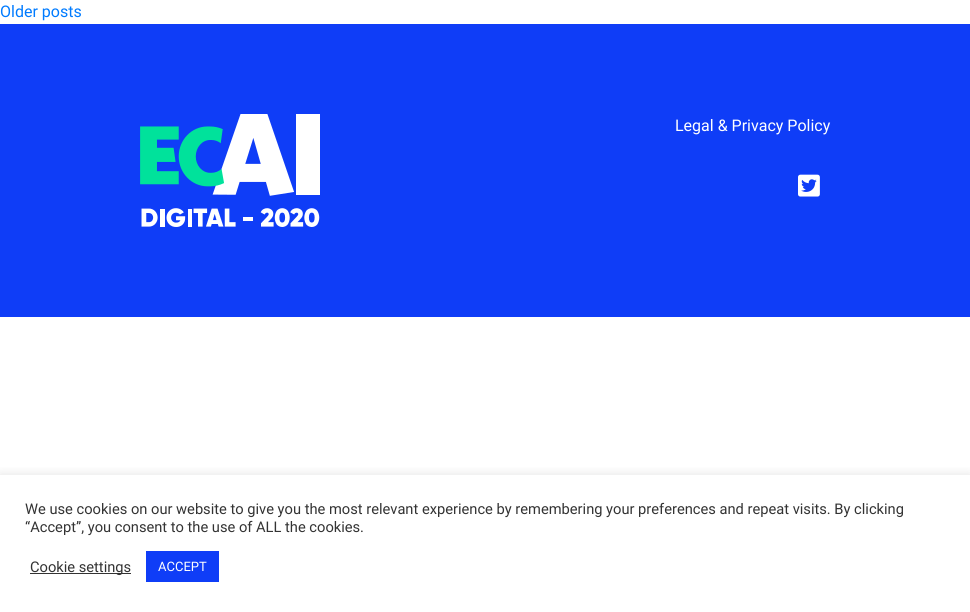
#include <cairo.h>
#include <math.h>
#include <stddef.h>


static void round_rect(cairo_t *cr, double x, double y, double w, double h, double r) {
    cairo_new_sub_path(cr);
    cairo_arc(cr, x + w - r, y + h - r, r, 0, M_PI / 2);
    cairo_arc(cr, x + r, y + h - r, r, M_PI / 2, M_PI);
    cairo_arc(cr, x + r, y + r, r, M_PI, 1.5 * M_PI);
    cairo_arc(cr, x + w - r, y + r, r, 1.5 * M_PI, 2 * M_PI);
    cairo_close_path(cr);
}

static void shadow(cairo_t *cr, double x, double y, double w, double h, double r, double blur, double alpha) {
    cairo_push_group_with_content(cr, CAIRO_CONTENT_ALPHA);
    cairo_set_operator(cr, CAIRO_OPERATOR_SOURCE);
    for (int i = 15; i >= -15 && fmin(w, h) + blur * i / 3 > 0; i -= 2) {
        double e = blur * i / 6;
        cairo_set_source_rgba(cr, 0, 0, 0, alpha * erfc((i - 1) / 8.5) / 2);
        round_rect(cr, x - e, y - e, w + 2 * e, h + 2 * e, fmax(0, fmin(r + e + blur * .6, fmin(w, h) / 2 + e)));
        cairo_fill(cr);
    }
    cairo_pattern_t *soft = cairo_pop_group(cr);
    cairo_mask(cr, soft);
    cairo_pattern_destroy(soft);
}

static void picture(cairo_t *cr, const char *path, double x, double y, double w, double h) {
    cairo_surface_t *image = cairo_image_surface_create_from_png(path);
    cairo_save(cr);
    cairo_set_source_surface(cr, image, x, y);
    cairo_rectangle(cr, x, y, w, h);
    cairo_fill(cr);
    cairo_restore(cr);
    cairo_surface_destroy(image);
}

int main(void) {
    cairo_surface_t *surface = cairo_image_surface_create(CAIRO_FORMAT_RGB24, 970, 612);
    cairo_t *cr = cairo_create(surface);
    cairo_font_options_t *options = cairo_font_options_create();
    cairo_font_options_set_hint_metrics(options, CAIRO_HINT_METRICS_OFF);
    cairo_font_options_set_hint_style(options, CAIRO_HINT_STYLE_NONE);
    cairo_set_font_options(cr, options);
    cairo_set_miter_limit(cr, 4);
    cairo_set_source_rgb(cr, 1, 1, 1);
    cairo_paint(cr);
    cairo_select_font_face(cr, "Roboto", CAIRO_FONT_SLANT_NORMAL, CAIRO_FONT_WEIGHT_NORMAL);
    cairo_set_font_size(cr, 16);
    cairo_set_source_rgb(cr, 0, 0.482, 1);
    cairo_move_to(cr, 0, 17);
    cairo_show_text(cr, "Older posts");
    cairo_set_source_rgb(cr, 0.059, 0.239, 0.965);
    cairo_rectangle(cr, 0, 24, 970, 293);
    cairo_fill(cr);
    picture(cr, "img1.png", 140, 114, 180, 113);
    cairo_set_source_rgb(cr, 1, 1, 1);
    cairo_move_to(cr, 675, 131);
    cairo_show_text(cr, "Legal & Privacy Policy");
    picture(cr, "img2.png", 798, 174, 22, 23);
    cairo_save(cr);
    cairo_rectangle(cr, 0, 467, 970, 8);
    cairo_clip(cr);
    cairo_set_source_rgb(cr, 0.675, 0.671, 0.671);
    shadow(cr, 0, 474, 970, 137, 0, 5, 0.3);
    cairo_restore(cr);
    cairo_set_font_size(cr, 14.67);
    cairo_set_source_rgb(cr, 0.2, 0.2, 0.2);
    cairo_move_to(cr, 25, 514);
    cairo_show_text(cr, "We use cookies on our website to give you the most relevant experience by remembering your preferences and repeat visits. By clicking");
    cairo_move_to(cr, 25, 532);
    cairo_show_text(cr, "“Accept”, you consent to the use of ALL the cookies.");
    cairo_rectangle(cr, 30, 573, 101, 1);
    cairo_fill(cr);
    cairo_move_to(cr, 30, 572);
    cairo_show_text(cr, "Cookie settings");
    cairo_set_source_rgb(cr, 0.059, 0.239, 0.965);
    cairo_rectangle(cr, 146, 551, 73, 31);
    cairo_fill(cr);
    cairo_set_font_size(cr, 13);
    cairo_set_source_rgb(cr, 1, 1, 1);
    cairo_move_to(cr, 158, 571);
    cairo_show_text(cr, "ACCEPT");
    cairo_surface_write_to_png(surface, "page.png");
    cairo_font_options_destroy(options);
    cairo_destroy(cr);
    cairo_surface_destroy(surface);
    return 0;
}
